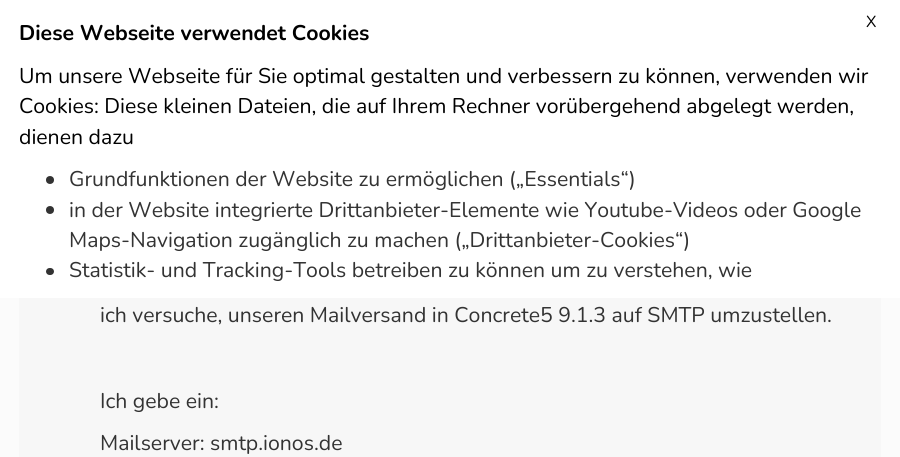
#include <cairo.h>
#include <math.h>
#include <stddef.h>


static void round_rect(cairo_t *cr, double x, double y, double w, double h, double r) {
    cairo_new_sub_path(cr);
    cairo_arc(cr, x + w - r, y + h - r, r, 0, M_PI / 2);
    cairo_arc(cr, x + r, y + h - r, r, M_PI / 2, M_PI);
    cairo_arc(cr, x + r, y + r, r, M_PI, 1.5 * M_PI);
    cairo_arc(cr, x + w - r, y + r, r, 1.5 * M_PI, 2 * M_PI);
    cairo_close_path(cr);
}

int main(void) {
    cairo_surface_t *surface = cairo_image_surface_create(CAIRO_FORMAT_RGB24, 900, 457);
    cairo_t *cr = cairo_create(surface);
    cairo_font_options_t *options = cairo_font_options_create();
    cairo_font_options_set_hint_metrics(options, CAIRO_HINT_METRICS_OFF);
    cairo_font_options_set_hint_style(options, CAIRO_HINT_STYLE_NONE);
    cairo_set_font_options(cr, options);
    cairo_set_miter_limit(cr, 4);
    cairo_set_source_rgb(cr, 0.984, 0.984, 0.984);
    cairo_paint(cr);
    cairo_set_source_rgb(cr, 1, 1, 1);
    cairo_rectangle(cr, 0, 0, 900, 298);
    cairo_fill(cr);
    cairo_select_font_face(cr, "Nunito", CAIRO_FONT_SLANT_NORMAL, CAIRO_FONT_WEIGHT_NORMAL);
    cairo_set_font_size(cr, 16);
    cairo_set_source_rgb(cr, 0, 0, 0);
    cairo_move_to(cr, 866, 27);
    cairo_show_text(cr, "X");
    cairo_select_font_face(cr, "Nunito", CAIRO_FONT_SLANT_NORMAL, CAIRO_FONT_WEIGHT_BOLD);
    cairo_set_font_size(cr, 21.25);
    cairo_move_to(cr, 19, 40);
    cairo_show_text(cr, "Diese Webseite verwendet Cookies");
    cairo_select_font_face(cr, "Nunito", CAIRO_FONT_SLANT_NORMAL, CAIRO_FONT_WEIGHT_NORMAL);
    cairo_move_to(cr, 19, 83);
    cairo_show_text(cr, "Um unsere Webseite für Sie optimal gestalten und verbessern zu können, verwenden wir");
    cairo_move_to(cr, 19, 113);
    cairo_show_text(cr, "Cookies: Diese kleinen Dateien, die auf Ihrem Rechner vorübergehend abgelegt werden,");
    cairo_move_to(cr, 19, 144);
    cairo_show_text(cr, "dienen dazu");
    cairo_set_source_rgb(cr, 0.2, 0.2, 0.2);
    cairo_new_path(cr);
    cairo_arc(cr, 50, 180, 4, 0, 2 * M_PI);
    cairo_fill(cr);
    cairo_move_to(cr, 69, 186);
    cairo_show_text(cr, "Grundfunktionen der Website zu ermöglichen („Essentials“)");
    cairo_new_path(cr);
    cairo_arc(cr, 50, 210, 4, 0, 2 * M_PI);
    cairo_fill(cr);
    cairo_move_to(cr, 69, 217);
    cairo_show_text(cr, "in der Website integrierte Drittanbieter-Elemente wie Youtube-Videos oder Google");
    cairo_move_to(cr, 69, 247);
    cairo_show_text(cr, "Maps-Navigation zugänglich zu machen („Drittanbieter-Cookies“)");
    round_rect(cr, 46, 268, 8, 7, 3.5);
    cairo_fill(cr);
    cairo_move_to(cr, 69, 277);
    cairo_show_text(cr, "Statistik- und Tracking-Tools betreiben zu können um zu verstehen, wie");
    cairo_set_source_rgb(cr, 0.965, 0.965, 0.965);
    cairo_rectangle(cr, 19, 298, 862, 159);
    cairo_fill(cr);
    cairo_set_source_rgb(cr, 0.2, 0.2, 0.2);
    cairo_move_to(cr, 100, 322);
    cairo_show_text(cr, "ich versuche, unseren Mailversand in Concrete5 9.1.3 auf SMTP umzustellen.");
    cairo_move_to(cr, 100, 408);
    cairo_show_text(cr, "Ich gebe ein:");
    cairo_move_to(cr, 100, 450);
    cairo_show_text(cr, "Mailserver: smtp.ionos.de");
    cairo_surface_write_to_png(surface, "page.png");
    cairo_font_options_destroy(options);
    cairo_destroy(cr);
    cairo_surface_destroy(surface);
    return 0;
}
